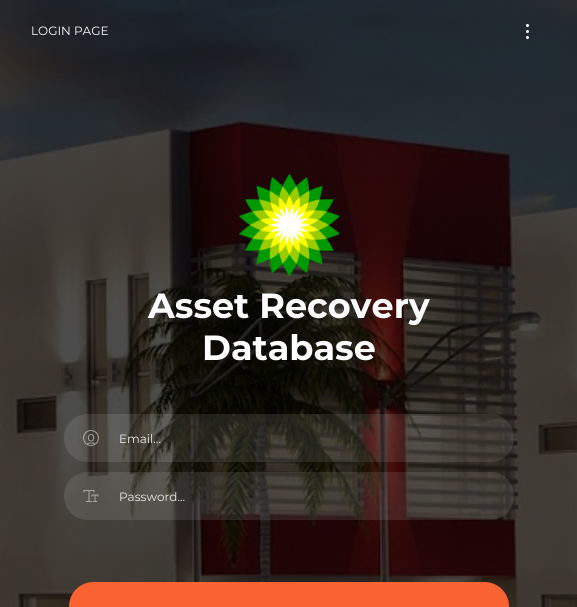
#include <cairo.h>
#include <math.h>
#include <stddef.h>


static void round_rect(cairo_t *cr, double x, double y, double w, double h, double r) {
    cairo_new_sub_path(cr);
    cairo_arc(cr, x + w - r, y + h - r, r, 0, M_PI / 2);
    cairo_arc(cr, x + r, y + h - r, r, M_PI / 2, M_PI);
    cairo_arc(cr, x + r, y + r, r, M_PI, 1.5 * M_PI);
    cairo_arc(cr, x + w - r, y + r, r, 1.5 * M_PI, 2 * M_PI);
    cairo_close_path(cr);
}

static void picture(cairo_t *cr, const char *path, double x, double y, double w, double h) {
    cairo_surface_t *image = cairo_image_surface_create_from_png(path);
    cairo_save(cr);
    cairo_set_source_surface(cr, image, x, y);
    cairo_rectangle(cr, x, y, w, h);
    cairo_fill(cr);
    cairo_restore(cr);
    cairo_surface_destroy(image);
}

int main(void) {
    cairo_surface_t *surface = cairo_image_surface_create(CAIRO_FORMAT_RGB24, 577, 607);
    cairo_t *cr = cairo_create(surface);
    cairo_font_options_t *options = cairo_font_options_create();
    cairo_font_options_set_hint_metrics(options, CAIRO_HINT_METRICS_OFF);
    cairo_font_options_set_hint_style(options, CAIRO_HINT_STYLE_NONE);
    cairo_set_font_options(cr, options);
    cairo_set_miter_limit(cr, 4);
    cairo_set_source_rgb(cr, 1, 1, 1);
    cairo_paint(cr);
    picture(cr, "img1.png", 0, 0, 577, 607);
    cairo_select_font_face(cr, "Montserrat", CAIRO_FONT_SLANT_NORMAL, CAIRO_FONT_WEIGHT_NORMAL);
    cairo_set_font_size(cr, 12);
    cairo_set_source_rgb(cr, 1, 1, 1);
    cairo_move_to(cr, 31, 35);
    cairo_show_text(cr, "LOGIN PAGE");
    cairo_new_path(cr);
    cairo_arc(cr, 527.5, 25.5, 1.5, 0, 2 * M_PI);
    cairo_fill(cr);
    cairo_arc(cr, 527.5, 31.5, 1.5, 0, 2 * M_PI);
    cairo_fill(cr);
    cairo_arc(cr, 527.5, 37.5, 1.5, 0, 2 * M_PI);
    cairo_fill(cr);
    picture(cr, "img2.png", 239, 173, 101, 104);
    cairo_select_font_face(cr, "Montserrat", CAIRO_FONT_SLANT_NORMAL, CAIRO_FONT_WEIGHT_BOLD);
    cairo_set_font_size(cr, 35);
    cairo_move_to(cr, 148, 318);
    cairo_show_text(cr, "Asset Recovery");
    cairo_move_to(cr, 202, 360);
    cairo_show_text(cr, "Database");
    cairo_set_source_rgba(cr, 1, 1, 1, 0.1);
    cairo_new_path(cr);
    cairo_move_to(cr, 88, 414);
    cairo_line_to(cr, 100, 414);
    cairo_line_to(cr, 100, 462);
    cairo_line_to(cr, 88, 462);
    cairo_curve_to(cr, 74.5, 462, 64, 451.5, 64, 438);
    cairo_curve_to(cr, 64, 424.5, 74.5, 414, 88, 414);
    cairo_close_path(cr);
    cairo_fill(cr);
    picture(cr, "img3.png", 83, 430, 16, 16);
    cairo_new_path(cr);
    cairo_move_to(cr, 100, 414);
    cairo_line_to(cr, 490, 414);
    cairo_curve_to(cr, 503.5, 414, 514, 424.5, 514, 438);
    cairo_curve_to(cr, 514, 451.5, 503.5, 462, 490, 462);
    cairo_line_to(cr, 100, 462);
    cairo_close_path(cr);
    cairo_fill(cr);
    cairo_select_font_face(cr, "Montserrat", CAIRO_FONT_SLANT_NORMAL, CAIRO_FONT_WEIGHT_NORMAL);
    cairo_set_font_size(cr, 12);
    cairo_set_source_rgb(cr, 0.922, 0.922, 0.922);
    cairo_move_to(cr, 119, 443);
    cairo_show_text(cr, "Email...");
    cairo_set_source_rgba(cr, 1, 1, 1, 0.1);
    cairo_new_path(cr);
    cairo_move_to(cr, 88, 472);
    cairo_line_to(cr, 100, 472);
    cairo_line_to(cr, 100, 520);
    cairo_line_to(cr, 88, 520);
    cairo_curve_to(cr, 74.5, 520, 64, 509.5, 64, 496);
    cairo_curve_to(cr, 64, 482.5, 74.5, 472, 88, 472);
    cairo_close_path(cr);
    cairo_fill(cr);
    picture(cr, "img4.png", 83, 490, 16, 12);
    cairo_new_path(cr);
    cairo_move_to(cr, 100, 472);
    cairo_line_to(cr, 490, 472);
    cairo_curve_to(cr, 503.5, 472, 514, 482.5, 514, 496);
    cairo_curve_to(cr, 514, 509.5, 503.5, 520, 490, 520);
    cairo_line_to(cr, 100, 520);
    cairo_close_path(cr);
    cairo_fill(cr);
    cairo_set_source_rgb(cr, 0.922, 0.922, 0.922);
    cairo_move_to(cr, 119, 501);
    cairo_show_text(cr, "Password...");
    cairo_set_source_rgb(cr, 0.976, 0.388, 0.196);
    round_rect(cr, 69, 582, 440, 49, 24.5);
    cairo_fill(cr);
    cairo_surface_write_to_png(surface, "page.png");
    cairo_font_options_destroy(options);
    cairo_destroy(cr);
    cairo_surface_destroy(surface);
    return 0;
}
